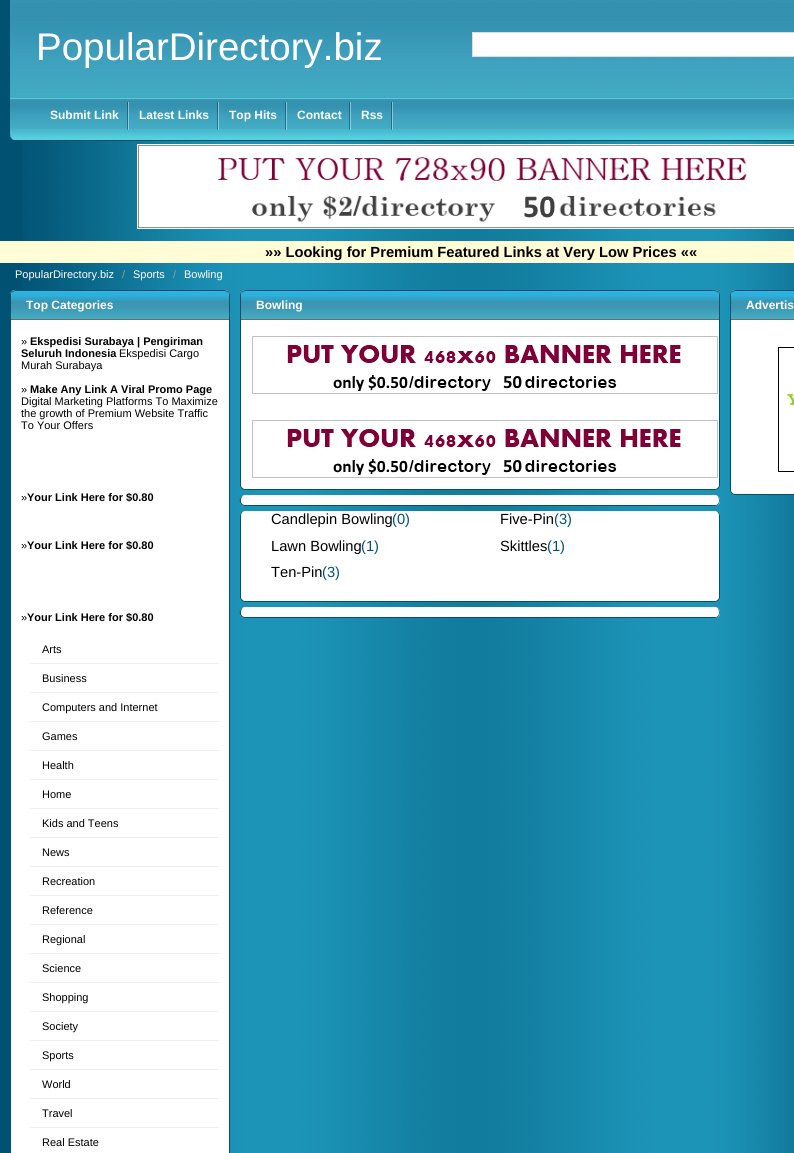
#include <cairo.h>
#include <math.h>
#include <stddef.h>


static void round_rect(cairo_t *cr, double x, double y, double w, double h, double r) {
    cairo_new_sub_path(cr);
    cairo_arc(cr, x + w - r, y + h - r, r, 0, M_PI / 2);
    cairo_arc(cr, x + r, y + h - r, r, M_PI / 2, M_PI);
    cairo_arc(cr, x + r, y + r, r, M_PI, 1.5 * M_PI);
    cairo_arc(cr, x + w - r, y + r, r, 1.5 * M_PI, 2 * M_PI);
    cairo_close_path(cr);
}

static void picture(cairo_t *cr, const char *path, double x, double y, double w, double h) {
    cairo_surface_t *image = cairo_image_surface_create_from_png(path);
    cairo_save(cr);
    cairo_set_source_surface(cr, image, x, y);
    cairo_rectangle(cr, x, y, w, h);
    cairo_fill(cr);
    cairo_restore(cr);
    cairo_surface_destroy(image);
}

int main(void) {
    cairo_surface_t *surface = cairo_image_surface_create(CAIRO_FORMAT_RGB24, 794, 1153);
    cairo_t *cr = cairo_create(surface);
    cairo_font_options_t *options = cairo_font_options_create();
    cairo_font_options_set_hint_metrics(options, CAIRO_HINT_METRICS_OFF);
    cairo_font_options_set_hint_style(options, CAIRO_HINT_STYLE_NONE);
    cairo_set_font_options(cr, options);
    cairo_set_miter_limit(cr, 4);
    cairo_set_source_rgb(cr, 0.004, 0.318, 0.447);
    cairo_paint(cr);
    picture(cr, "img1.png", 10, 0, 784, 98);
    cairo_select_font_face(cr, "Liberation Sans", CAIRO_FONT_SLANT_NORMAL, CAIRO_FONT_WEIGHT_NORMAL);
    cairo_set_font_size(cr, 38.5);
    cairo_set_source_rgb(cr, 1, 1, 1);
    cairo_move_to(cr, 36, 60);
    cairo_show_text(cr, "PopularDirectory.biz");
    cairo_rectangle(cr, 472.5, 32.5, 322, 24);
    cairo_fill_preserve(cr);
    cairo_set_source_rgb(cr, 0.867, 0.867, 0.867);
    cairo_set_line_width(cr, 1);
    cairo_stroke(cr);
    picture(cr, "img2.png", 10, 98, 784, 43);
    picture(cr, "img3.png", 127, 102, 2, 28);
    cairo_select_font_face(cr, "Liberation Sans", CAIRO_FONT_SLANT_NORMAL, CAIRO_FONT_WEIGHT_BOLD);
    cairo_set_font_size(cr, 12);
    cairo_set_source_rgb(cr, 1, 1, 1);
    cairo_move_to(cr, 50, 119);
    cairo_show_text(cr, "Submit Link");
    picture(cr, "img3.png", 217, 102, 2, 28);
    cairo_move_to(cr, 139, 119);
    cairo_show_text(cr, "Latest Links");
    picture(cr, "img3.png", 285, 102, 2, 28);
    cairo_move_to(cr, 229, 119);
    cairo_show_text(cr, "Top Hits");
    picture(cr, "img3.png", 349, 102, 2, 28);
    cairo_move_to(cr, 297, 119);
    cairo_show_text(cr, "Contact");
    picture(cr, "img3.png", 391, 102, 2, 28);
    cairo_move_to(cr, 361, 119);
    cairo_show_text(cr, "Rss");
    picture(cr, "img4.png", 22, 141, 772, 1012);
    picture(cr, "img5.png", 137, 144, 657, 85);
    cairo_set_source_rgb(cr, 1, 0.988, 0.839);
    cairo_rectangle(cr, 0, 241, 794, 22);
    cairo_fill(cr);
    cairo_set_font_size(cr, 14.7);
    cairo_set_source_rgb(cr, 0, 0, 0);
    cairo_move_to(cr, 265, 257);
    cairo_show_text(cr, "»» Looking for Premium Featured Links at Very Low Prices ««");
    cairo_select_font_face(cr, "Liberation Sans", CAIRO_FONT_SLANT_NORMAL, CAIRO_FONT_WEIGHT_NORMAL);
    cairo_set_font_size(cr, 11);
    cairo_set_source_rgb(cr, 1, 1, 1);
    cairo_move_to(cr, 15, 278);
    cairo_show_text(cr, "PopularDirectory.biz");
    cairo_set_source_rgb(cr, 0.6, 0.6, 0.6);
    cairo_move_to(cr, 122, 278);
    cairo_show_text(cr, "/");
    cairo_set_source_rgb(cr, 1, 1, 1);
    cairo_move_to(cr, 133, 278);
    cairo_show_text(cr, "Sports");
    cairo_set_source_rgb(cr, 0.6, 0.6, 0.6);
    cairo_move_to(cr, 173, 278);
    cairo_show_text(cr, "/");
    cairo_set_source_rgb(cr, 1, 1, 1);
    cairo_move_to(cr, 184, 278);
    cairo_show_text(cr, "Bowling");
    round_rect(cr, 10, 290, 220, 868, 5);
    cairo_fill(cr);
    cairo_set_source_rgb(cr, 0.008, 0.31, 0.431);
    cairo_set_fill_rule(cr, CAIRO_FILL_RULE_EVEN_ODD);
    cairo_new_path(cr);
    cairo_move_to(cr, 15, 290);
    cairo_line_to(cr, 225, 290);
    cairo_curve_to(cr, 228, 290, 230, 292, 230, 295);
    cairo_line_to(cr, 230, 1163);
    cairo_curve_to(cr, 230, 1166, 228, 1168, 225, 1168);
    cairo_line_to(cr, 15, 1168);
    cairo_curve_to(cr, 12, 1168, 10, 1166, 10, 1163);
    cairo_line_to(cr, 10, 295);
    cairo_curve_to(cr, 10, 292, 12, 290, 15, 290);
    cairo_close_path(cr);
    cairo_move_to(cr, 15, 290);
    cairo_line_to(cr, 225, 290);
    cairo_curve_to(cr, 227, 290, 229, 292, 229, 295);
    cairo_line_to(cr, 229, 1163);
    cairo_curve_to(cr, 229, 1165, 227, 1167, 225, 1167);
    cairo_line_to(cr, 15, 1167);
    cairo_curve_to(cr, 13, 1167, 11, 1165, 11, 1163);
    cairo_line_to(cr, 11, 295);
    cairo_curve_to(cr, 11, 292, 13, 290, 15, 290);
    cairo_close_path(cr);
    cairo_fill(cr);
    picture(cr, "img6.png", 11, 291, 218, 29);
    cairo_set_fill_rule(cr, CAIRO_FILL_RULE_WINDING);
    cairo_new_path(cr);
    cairo_move_to(cr, 16, 290);
    cairo_curve_to(cr, 13, 290, 11, 292, 11, 295);
    cairo_curve_to(cr, 11, 293, 13, 291, 16, 291);
    cairo_line_to(cr, 224, 291);
    cairo_curve_to(cr, 227, 291, 229, 293, 229, 295);
    cairo_curve_to(cr, 229, 292, 227, 290, 224, 290);
    cairo_close_path(cr);
    cairo_fill(cr);
    cairo_select_font_face(cr, "Liberation Sans", CAIRO_FONT_SLANT_NORMAL, CAIRO_FONT_WEIGHT_BOLD);
    cairo_set_font_size(cr, 12);
    cairo_set_source_rgb(cr, 1, 1, 1);
    cairo_move_to(cr, 26, 309);
    cairo_show_text(cr, "Top Categories");
    cairo_select_font_face(cr, "Liberation Sans", CAIRO_FONT_SLANT_NORMAL, CAIRO_FONT_WEIGHT_NORMAL);
    cairo_set_font_size(cr, 11);
    cairo_set_source_rgb(cr, 0, 0, 0);
    cairo_move_to(cr, 21, 345);
    cairo_show_text(cr, "»");
    cairo_select_font_face(cr, "Liberation Sans", CAIRO_FONT_SLANT_NORMAL, CAIRO_FONT_WEIGHT_BOLD);
    cairo_move_to(cr, 30, 345);
    cairo_show_text(cr, "Ekspedisi Surabaya | Pengiriman");
    cairo_move_to(cr, 21, 357);
    cairo_show_text(cr, "Seluruh Indonesia");
    cairo_select_font_face(cr, "Liberation Sans", CAIRO_FONT_SLANT_NORMAL, CAIRO_FONT_WEIGHT_NORMAL);
    cairo_move_to(cr, 119, 357);
    cairo_show_text(cr, "Ekspedisi Cargo");
    cairo_move_to(cr, 21, 369);
    cairo_show_text(cr, "Murah Surabaya");
    cairo_move_to(cr, 21, 393);
    cairo_show_text(cr, "»");
    cairo_select_font_face(cr, "Liberation Sans", CAIRO_FONT_SLANT_NORMAL, CAIRO_FONT_WEIGHT_BOLD);
    cairo_move_to(cr, 30, 393);
    cairo_show_text(cr, "Make Any Link A Viral Promo Page");
    cairo_select_font_face(cr, "Liberation Sans", CAIRO_FONT_SLANT_NORMAL, CAIRO_FONT_WEIGHT_NORMAL);
    cairo_move_to(cr, 21, 405);
    cairo_show_text(cr, "Digital Marketing Platforms To Maximize");
    cairo_move_to(cr, 21, 417);
    cairo_show_text(cr, "the growth of Premium Website Traffic");
    cairo_move_to(cr, 21, 429);
    cairo_show_text(cr, "To Your Offers");
    cairo_move_to(cr, 21, 501);
    cairo_show_text(cr, "»");
    cairo_select_font_face(cr, "Liberation Sans", CAIRO_FONT_SLANT_NORMAL, CAIRO_FONT_WEIGHT_BOLD);
    cairo_move_to(cr, 27, 501);
    cairo_show_text(cr, "Your Link Here for $0.80");
    cairo_select_font_face(cr, "Liberation Sans", CAIRO_FONT_SLANT_NORMAL, CAIRO_FONT_WEIGHT_NORMAL);
    cairo_move_to(cr, 21, 549);
    cairo_show_text(cr, "»");
    cairo_select_font_face(cr, "Liberation Sans", CAIRO_FONT_SLANT_NORMAL, CAIRO_FONT_WEIGHT_BOLD);
    cairo_move_to(cr, 27, 549);
    cairo_show_text(cr, "Your Link Here for $0.80");
    cairo_select_font_face(cr, "Liberation Sans", CAIRO_FONT_SLANT_NORMAL, CAIRO_FONT_WEIGHT_NORMAL);
    cairo_move_to(cr, 21, 621);
    cairo_show_text(cr, "»");
    cairo_select_font_face(cr, "Liberation Sans", CAIRO_FONT_SLANT_NORMAL, CAIRO_FONT_WEIGHT_BOLD);
    cairo_move_to(cr, 27, 621);
    cairo_show_text(cr, "Your Link Here for $0.80");
    cairo_set_source_rgb(cr, 0.937, 0.937, 0.937);
    cairo_rectangle(cr, 30, 663, 189, 1);
    cairo_fill(cr);
    cairo_select_font_face(cr, "Liberation Sans", CAIRO_FONT_SLANT_NORMAL, CAIRO_FONT_WEIGHT_NORMAL);
    cairo_set_source_rgb(cr, 0, 0, 0);
    cairo_move_to(cr, 42, 653);
    cairo_show_text(cr, "Arts");
    cairo_set_source_rgb(cr, 0.937, 0.937, 0.937);
    cairo_rectangle(cr, 30, 692, 189, 1);
    cairo_fill(cr);
    cairo_set_source_rgb(cr, 0, 0, 0);
    cairo_move_to(cr, 42, 682);
    cairo_show_text(cr, "Business");
    cairo_set_source_rgb(cr, 0.937, 0.937, 0.937);
    cairo_rectangle(cr, 30, 721, 189, 1);
    cairo_fill(cr);
    cairo_set_source_rgb(cr, 0, 0, 0);
    cairo_move_to(cr, 42, 711);
    cairo_show_text(cr, "Computers and Internet");
    cairo_set_source_rgb(cr, 0.937, 0.937, 0.937);
    cairo_rectangle(cr, 30, 750, 189, 1);
    cairo_fill(cr);
    cairo_set_source_rgb(cr, 0, 0, 0);
    cairo_move_to(cr, 42, 740);
    cairo_show_text(cr, "Games");
    cairo_set_source_rgb(cr, 0.937, 0.937, 0.937);
    cairo_rectangle(cr, 30, 779, 189, 1);
    cairo_fill(cr);
    cairo_set_source_rgb(cr, 0, 0, 0);
    cairo_move_to(cr, 42, 769);
    cairo_show_text(cr, "Health");
    cairo_set_source_rgb(cr, 0.937, 0.937, 0.937);
    cairo_rectangle(cr, 30, 808, 189, 1);
    cairo_fill(cr);
    cairo_set_source_rgb(cr, 0, 0, 0);
    cairo_move_to(cr, 42, 798);
    cairo_show_text(cr, "Home");
    cairo_set_source_rgb(cr, 0.937, 0.937, 0.937);
    cairo_rectangle(cr, 30, 837, 189, 1);
    cairo_fill(cr);
    cairo_set_source_rgb(cr, 0, 0, 0);
    cairo_move_to(cr, 42, 827);
    cairo_show_text(cr, "Kids and Teens");
    cairo_set_source_rgb(cr, 0.937, 0.937, 0.937);
    cairo_rectangle(cr, 30, 866, 189, 1);
    cairo_fill(cr);
    cairo_set_source_rgb(cr, 0, 0, 0);
    cairo_move_to(cr, 42, 856);
    cairo_show_text(cr, "News");
    cairo_set_source_rgb(cr, 0.937, 0.937, 0.937);
    cairo_rectangle(cr, 30, 895, 189, 1);
    cairo_fill(cr);
    cairo_set_source_rgb(cr, 0, 0, 0);
    cairo_move_to(cr, 42, 885);
    cairo_show_text(cr, "Recreation");
    cairo_set_source_rgb(cr, 0.937, 0.937, 0.937);
    cairo_rectangle(cr, 30, 924, 189, 1);
    cairo_fill(cr);
    cairo_set_source_rgb(cr, 0, 0, 0);
    cairo_move_to(cr, 42, 914);
    cairo_show_text(cr, "Reference");
    cairo_set_source_rgb(cr, 0.937, 0.937, 0.937);
    cairo_rectangle(cr, 30, 953, 189, 1);
    cairo_fill(cr);
    cairo_set_source_rgb(cr, 0, 0, 0);
    cairo_move_to(cr, 42, 943);
    cairo_show_text(cr, "Regional");
    cairo_set_source_rgb(cr, 0.937, 0.937, 0.937);
    cairo_rectangle(cr, 30, 982, 189, 1);
    cairo_fill(cr);
    cairo_set_source_rgb(cr, 0, 0, 0);
    cairo_move_to(cr, 42, 972);
    cairo_show_text(cr, "Science");
    cairo_set_source_rgb(cr, 0.937, 0.937, 0.937);
    cairo_rectangle(cr, 30, 1011, 189, 1);
    cairo_fill(cr);
    cairo_set_source_rgb(cr, 0, 0, 0);
    cairo_move_to(cr, 42, 1001);
    cairo_show_text(cr, "Shopping");
    cairo_set_source_rgb(cr, 0.937, 0.937, 0.937);
    cairo_rectangle(cr, 30, 1040, 189, 1);
    cairo_fill(cr);
    cairo_set_source_rgb(cr, 0, 0, 0);
    cairo_move_to(cr, 42, 1030);
    cairo_show_text(cr, "Society");
    cairo_set_source_rgb(cr, 0.937, 0.937, 0.937);
    cairo_rectangle(cr, 30, 1069, 189, 1);
    cairo_fill(cr);
    cairo_set_source_rgb(cr, 0, 0, 0);
    cairo_move_to(cr, 42, 1059);
    cairo_show_text(cr, "Sports");
    cairo_set_source_rgb(cr, 0.937, 0.937, 0.937);
    cairo_rectangle(cr, 30, 1098, 189, 1);
    cairo_fill(cr);
    cairo_set_source_rgb(cr, 0, 0, 0);
    cairo_move_to(cr, 42, 1088);
    cairo_show_text(cr, "World");
    cairo_set_source_rgb(cr, 0.937, 0.937, 0.937);
    cairo_rectangle(cr, 30, 1127, 189, 1);
    cairo_fill(cr);
    cairo_set_source_rgb(cr, 0, 0, 0);
    cairo_move_to(cr, 42, 1117);
    cairo_show_text(cr, "Travel");
    cairo_move_to(cr, 42, 1146);
    cairo_show_text(cr, "Real Estate");
    cairo_set_source_rgb(cr, 1, 1, 1);
    round_rect(cr, 240, 290, 480, 200, 5);
    cairo_fill(cr);
    cairo_set_source_rgb(cr, 0.008, 0.31, 0.431);
    cairo_set_fill_rule(cr, CAIRO_FILL_RULE_EVEN_ODD);
    cairo_new_path(cr);
    cairo_move_to(cr, 245, 290);
    cairo_line_to(cr, 715, 290);
    cairo_curve_to(cr, 718, 290, 720, 292, 720, 295);
    cairo_line_to(cr, 720, 485);
    cairo_curve_to(cr, 720, 488, 718, 490, 715, 490);
    cairo_line_to(cr, 245, 490);
    cairo_curve_to(cr, 242, 490, 240, 488, 240, 485);
    cairo_line_to(cr, 240, 295);
    cairo_curve_to(cr, 240, 292, 242, 290, 245, 290);
    cairo_close_path(cr);
    cairo_move_to(cr, 245, 290);
    cairo_line_to(cr, 715, 290);
    cairo_curve_to(cr, 717, 290, 719, 292, 719, 295);
    cairo_line_to(cr, 719, 485);
    cairo_curve_to(cr, 719, 487, 717, 489, 715, 489);
    cairo_line_to(cr, 245, 489);
    cairo_curve_to(cr, 243, 489, 241, 487, 241, 485);
    cairo_line_to(cr, 241, 295);
    cairo_curve_to(cr, 241, 292, 243, 290, 245, 290);
    cairo_close_path(cr);
    cairo_fill(cr);
    picture(cr, "img7.png", 241, 291, 478, 29);
    cairo_set_fill_rule(cr, CAIRO_FILL_RULE_WINDING);
    cairo_new_path(cr);
    cairo_move_to(cr, 246, 290);
    cairo_curve_to(cr, 243, 290, 241, 292, 241, 295);
    cairo_curve_to(cr, 241, 293, 243, 291, 246, 291);
    cairo_line_to(cr, 714, 291);
    cairo_curve_to(cr, 717, 291, 719, 293, 719, 295);
    cairo_curve_to(cr, 719, 292, 717, 290, 714, 290);
    cairo_close_path(cr);
    cairo_fill(cr);
    cairo_select_font_face(cr, "Liberation Sans", CAIRO_FONT_SLANT_NORMAL, CAIRO_FONT_WEIGHT_BOLD);
    cairo_set_font_size(cr, 12);
    cairo_set_source_rgb(cr, 1, 1, 1);
    cairo_move_to(cr, 256, 309);
    cairo_show_text(cr, "Bowling");
    picture(cr, "img8.png", 252, 336, 466, 58);
    picture(cr, "img8.png", 252, 420, 466, 58);
    round_rect(cr, 240, 495, 480, 11, 5);
    cairo_fill(cr);
    cairo_set_source_rgb(cr, 0.008, 0.31, 0.431);
    cairo_set_fill_rule(cr, CAIRO_FILL_RULE_EVEN_ODD);
    cairo_new_path(cr);
    cairo_move_to(cr, 245, 495);
    cairo_line_to(cr, 715, 495);
    cairo_curve_to(cr, 717, 495, 718, 496, 719, 497);
    cairo_curve_to(cr, 721, 501, 719, 506, 715, 506);
    cairo_line_to(cr, 245, 506);
    cairo_curve_to(cr, 238, 506, 238, 495, 245, 495);
    cairo_close_path(cr);
    cairo_move_to(cr, 245, 495);
    cairo_line_to(cr, 715, 495);
    cairo_curve_to(cr, 718, 495, 719, 498, 719, 500);
    cairo_curve_to(cr, 719, 503, 718, 505, 715, 505);
    cairo_line_to(cr, 245, 505);
    cairo_curve_to(cr, 239, 505, 240, 495, 245, 495);
    cairo_close_path(cr);
    cairo_fill(cr);
    cairo_set_source_rgb(cr, 1, 1, 1);
    round_rect(cr, 240, 511, 480, 91, 5);
    cairo_fill(cr);
    cairo_set_source_rgb(cr, 0.008, 0.31, 0.431);
    cairo_new_path(cr);
    cairo_move_to(cr, 245, 511);
    cairo_line_to(cr, 715, 511);
    cairo_curve_to(cr, 718, 511, 720, 513, 720, 516);
    cairo_line_to(cr, 720, 597);
    cairo_curve_to(cr, 720, 600, 718, 602, 715, 602);
    cairo_line_to(cr, 245, 602);
    cairo_curve_to(cr, 242, 602, 240, 600, 240, 597);
    cairo_line_to(cr, 240, 516);
    cairo_curve_to(cr, 240, 513, 242, 511, 245, 511);
    cairo_close_path(cr);
    cairo_move_to(cr, 245, 511);
    cairo_line_to(cr, 715, 511);
    cairo_curve_to(cr, 717, 511, 719, 513, 719, 516);
    cairo_line_to(cr, 719, 597);
    cairo_curve_to(cr, 719, 599, 717, 601, 715, 601);
    cairo_line_to(cr, 245, 601);
    cairo_curve_to(cr, 243, 601, 241, 599, 241, 597);
    cairo_line_to(cr, 241, 516);
    cairo_curve_to(cr, 241, 513, 243, 511, 245, 511);
    cairo_close_path(cr);
    cairo_fill(cr);
    cairo_select_font_face(cr, "Liberation Sans", CAIRO_FONT_SLANT_NORMAL, CAIRO_FONT_WEIGHT_NORMAL);
    cairo_set_font_size(cr, 14.7);
    cairo_set_source_rgb(cr, 0, 0, 0);
    cairo_move_to(cr, 271, 524);
    cairo_show_text(cr, "Candlepin Bowling");
    cairo_set_source_rgb(cr, 0, 0.325, 0.471);
    cairo_move_to(cr, 392, 524);
    cairo_show_text(cr, "(0)");
    cairo_set_source_rgb(cr, 0, 0, 0);
    cairo_move_to(cr, 500, 524);
    cairo_show_text(cr, "Five-Pin");
    cairo_set_source_rgb(cr, 0, 0.325, 0.471);
    cairo_move_to(cr, 554, 524);
    cairo_show_text(cr, "(3)");
    cairo_set_source_rgb(cr, 0, 0, 0);
    cairo_move_to(cr, 271, 551);
    cairo_show_text(cr, "Lawn Bowling");
    cairo_set_source_rgb(cr, 0, 0.325, 0.471);
    cairo_move_to(cr, 361, 551);
    cairo_show_text(cr, "(1)");
    cairo_set_source_rgb(cr, 0, 0, 0);
    cairo_move_to(cr, 500, 551);
    cairo_show_text(cr, "Skittles");
    cairo_set_source_rgb(cr, 0, 0.325, 0.471);
    cairo_move_to(cr, 547, 551);
    cairo_show_text(cr, "(1)");
    cairo_set_source_rgb(cr, 0, 0, 0);
    cairo_move_to(cr, 271, 577);
    cairo_show_text(cr, "Ten-Pin");
    cairo_set_source_rgb(cr, 0, 0.325, 0.471);
    cairo_move_to(cr, 322, 577);
    cairo_show_text(cr, "(3)");
    cairo_set_source_rgb(cr, 1, 1, 1);
    round_rect(cr, 240, 607, 480, 11, 5);
    cairo_fill(cr);
    cairo_set_source_rgb(cr, 0.008, 0.31, 0.431);
    cairo_new_path(cr);
    cairo_move_to(cr, 245, 607);
    cairo_line_to(cr, 715, 607);
    cairo_curve_to(cr, 717, 607, 718, 608, 719, 609);
    cairo_curve_to(cr, 721, 613, 719, 618, 715, 618);
    cairo_line_to(cr, 245, 618);
    cairo_curve_to(cr, 238, 618, 238, 607, 245, 607);
    cairo_close_path(cr);
    cairo_move_to(cr, 245, 607);
    cairo_line_to(cr, 715, 607);
    cairo_curve_to(cr, 718, 607, 719, 610, 719, 612);
    cairo_curve_to(cr, 719, 615, 718, 617, 715, 617);
    cairo_line_to(cr, 245, 617);
    cairo_curve_to(cr, 239, 617, 240, 607, 245, 607);
    cairo_close_path(cr);
    cairo_fill(cr);
    cairo_set_source_rgb(cr, 1, 1, 1);
    round_rect(cr, 730, 290, 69, 205, 5);
    cairo_fill(cr);
    cairo_set_source_rgb(cr, 0.008, 0.31, 0.431);
    cairo_new_path(cr);
    cairo_move_to(cr, 735, 290);
    cairo_line_to(cr, 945, 290);
    cairo_curve_to(cr, 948, 290, 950, 292, 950, 295);
    cairo_line_to(cr, 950, 490);
    cairo_curve_to(cr, 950, 493, 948, 495, 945, 495);
    cairo_line_to(cr, 735, 495);
    cairo_curve_to(cr, 732, 495, 730, 493, 730, 490);
    cairo_line_to(cr, 730, 295);
    cairo_curve_to(cr, 730, 292, 732, 290, 735, 290);
    cairo_close_path(cr);
    cairo_move_to(cr, 735, 290);
    cairo_line_to(cr, 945, 290);
    cairo_curve_to(cr, 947, 290, 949, 292, 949, 295);
    cairo_line_to(cr, 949, 490);
    cairo_curve_to(cr, 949, 492, 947, 494, 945, 494);
    cairo_line_to(cr, 735, 494);
    cairo_curve_to(cr, 733, 494, 731, 492, 731, 490);
    cairo_line_to(cr, 731, 295);
    cairo_curve_to(cr, 731, 292, 733, 290, 735, 290);
    cairo_close_path(cr);
    cairo_fill(cr);
    picture(cr, "img9.png", 731, 291, 63, 29);
    cairo_set_fill_rule(cr, CAIRO_FILL_RULE_WINDING);
    cairo_new_path(cr);
    cairo_move_to(cr, 736, 290);
    cairo_curve_to(cr, 733, 290, 731, 292, 731, 295);
    cairo_curve_to(cr, 731, 293, 733, 291, 736, 291);
    cairo_line_to(cr, 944, 291);
    cairo_curve_to(cr, 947, 291, 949, 293, 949, 295);
    cairo_curve_to(cr, 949, 292, 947, 290, 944, 290);
    cairo_close_path(cr);
    cairo_fill(cr);
    cairo_select_font_face(cr, "Liberation Sans", CAIRO_FONT_SLANT_NORMAL, CAIRO_FONT_WEIGHT_BOLD);
    cairo_set_font_size(cr, 12);
    cairo_set_source_rgb(cr, 1, 1, 1);
    cairo_move_to(cr, 746, 309);
    cairo_show_text(cr, "Advertis");
    picture(cr, "img10.png", 778, 347, 16, 125);
    cairo_surface_write_to_png(surface, "page.png");
    cairo_font_options_destroy(options);
    cairo_destroy(cr);
    cairo_surface_destroy(surface);
    return 0;
}
